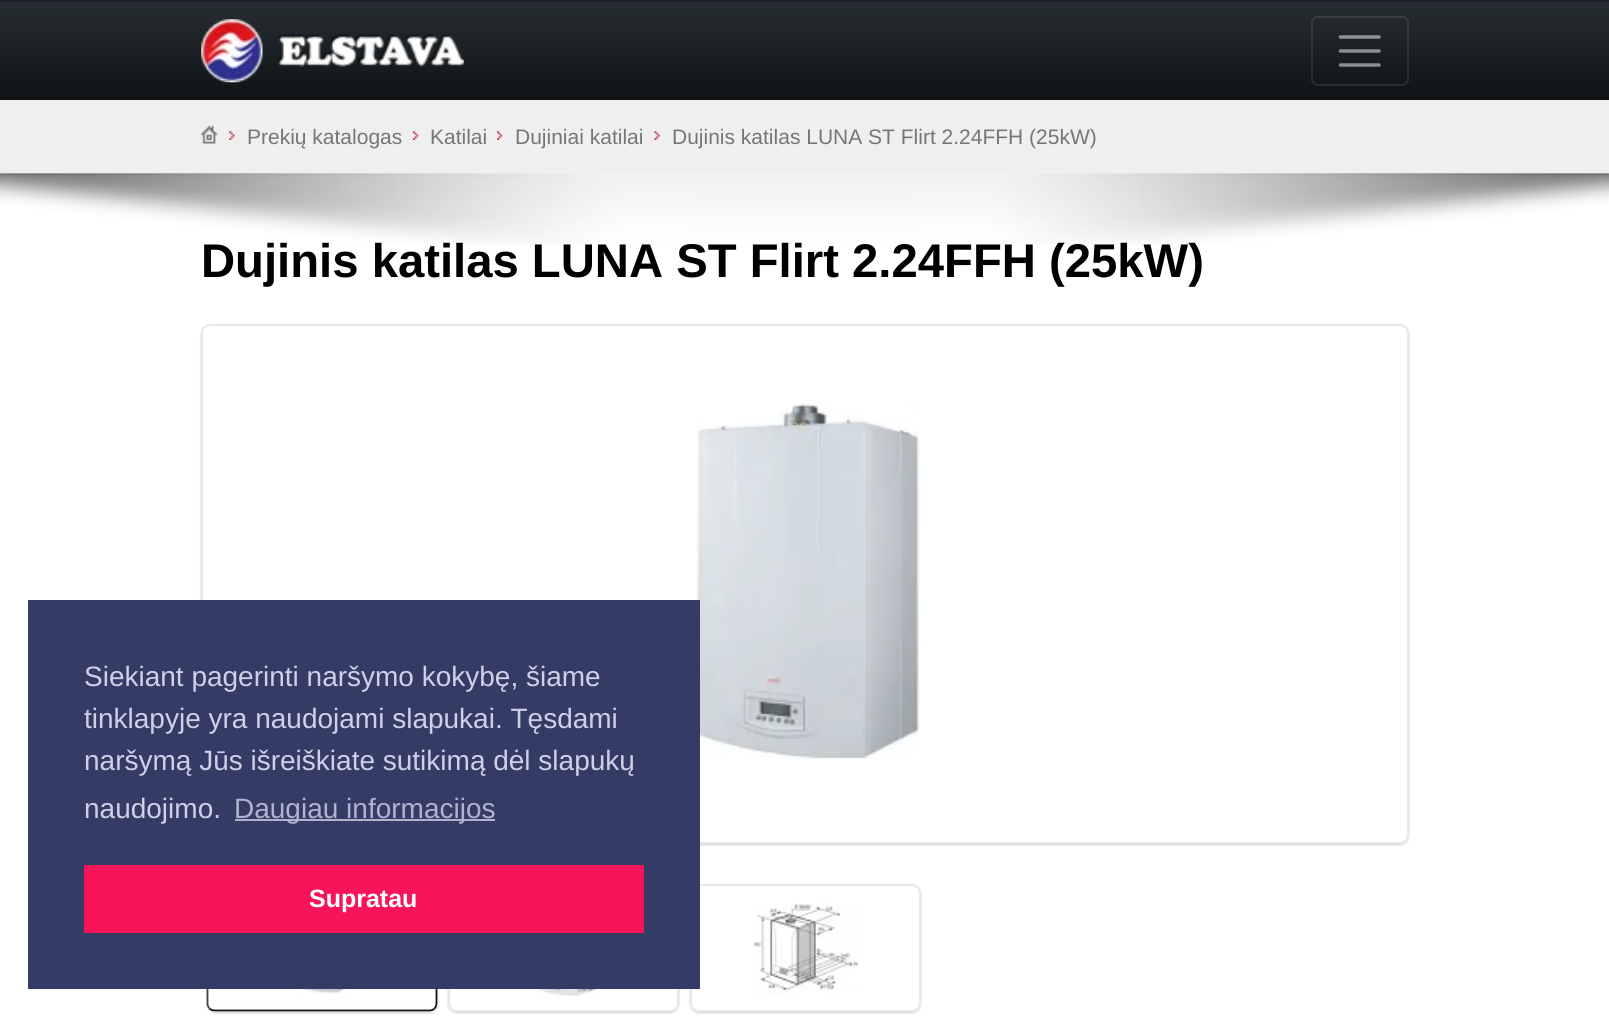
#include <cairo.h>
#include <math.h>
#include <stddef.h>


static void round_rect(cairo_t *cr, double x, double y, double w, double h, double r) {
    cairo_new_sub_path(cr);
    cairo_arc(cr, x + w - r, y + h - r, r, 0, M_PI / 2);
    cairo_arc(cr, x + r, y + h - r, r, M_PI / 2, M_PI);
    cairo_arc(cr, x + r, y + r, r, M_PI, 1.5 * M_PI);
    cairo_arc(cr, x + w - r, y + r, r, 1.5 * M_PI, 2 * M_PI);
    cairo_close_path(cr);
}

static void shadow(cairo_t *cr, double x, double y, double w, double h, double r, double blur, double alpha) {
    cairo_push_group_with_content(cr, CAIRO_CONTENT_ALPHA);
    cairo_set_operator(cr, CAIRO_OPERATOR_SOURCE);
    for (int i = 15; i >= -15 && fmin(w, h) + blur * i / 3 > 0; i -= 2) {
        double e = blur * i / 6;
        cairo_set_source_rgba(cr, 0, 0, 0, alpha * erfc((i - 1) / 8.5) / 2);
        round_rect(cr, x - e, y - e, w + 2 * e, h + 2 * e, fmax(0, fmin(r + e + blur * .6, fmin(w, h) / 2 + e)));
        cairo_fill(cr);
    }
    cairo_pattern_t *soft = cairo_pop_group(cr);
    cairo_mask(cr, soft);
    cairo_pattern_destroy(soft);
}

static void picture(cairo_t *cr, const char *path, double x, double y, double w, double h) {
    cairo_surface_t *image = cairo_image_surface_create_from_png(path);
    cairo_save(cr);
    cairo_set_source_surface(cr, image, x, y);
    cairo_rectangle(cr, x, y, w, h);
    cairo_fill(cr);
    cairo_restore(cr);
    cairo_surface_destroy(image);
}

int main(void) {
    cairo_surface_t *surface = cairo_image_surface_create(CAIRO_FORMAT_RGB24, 1609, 1016);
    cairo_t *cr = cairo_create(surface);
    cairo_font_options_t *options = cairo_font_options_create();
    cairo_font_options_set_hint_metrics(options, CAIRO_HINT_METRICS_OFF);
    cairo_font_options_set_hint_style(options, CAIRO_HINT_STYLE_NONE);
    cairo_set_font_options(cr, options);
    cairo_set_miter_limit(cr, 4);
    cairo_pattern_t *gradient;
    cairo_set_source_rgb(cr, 1, 1, 1);
    cairo_paint(cr);
    gradient = cairo_pattern_create_linear(805, 1.7, 805, 100);
    cairo_pattern_add_color_stop_rgba(gradient, 0, 0.149, 0.176, 0.196, 1);
    cairo_pattern_add_color_stop_rgba(gradient, 1, 0.059, 0.075, 0.082, 1);
    cairo_set_source(cr, gradient);
    cairo_pattern_destroy(gradient);
    cairo_rectangle(cr, 0, 2, 1609, 98);
    cairo_fill(cr);
    cairo_set_source_rgb(cr, 0.114, 0.133, 0.149);
    cairo_rectangle(cr, 0, 0, 1609, 2);
    cairo_fill(cr);
    picture(cr, "img1.png", 201, 19, 263, 64);
    round_rect(cr, 1312, 17, 96, 68, 6);
    cairo_set_source_rgba(cr, 1, 1, 1, 0.1);
    cairo_stroke(cr);
    cairo_new_path(cr);
    cairo_move_to(cr, 1340.5, 37);
    cairo_line_to(cr, 1379, 37);
    cairo_move_to(cr, 1340.5, 51);
    cairo_line_to(cr, 1379, 51);
    cairo_move_to(cr, 1340.5, 65);
    cairo_line_to(cr, 1379, 65);
    cairo_set_source_rgba(cr, 1, 1, 1, 0.5);
    cairo_set_line_width(cr, 3.5);
    cairo_set_line_cap(cr, CAIRO_LINE_CAP_ROUND);
    cairo_stroke(cr);
    cairo_set_source_rgb(cr, 0.937, 0.937, 0.941);
    cairo_rectangle(cr, 0, 100, 1609, 73);
    cairo_fill(cr);
    picture(cr, "img2.png", 201, 125, 17, 19);
    picture(cr, "img3.png", 229, 131, 6, 9);
    cairo_select_font_face(cr, "Liberation Sans", CAIRO_FONT_SLANT_NORMAL, CAIRO_FONT_WEIGHT_NORMAL);
    cairo_set_font_size(cr, 21);
    cairo_set_source_rgb(cr, 0.459, 0.463, 0.471);
    cairo_move_to(cr, 247, 144);
    cairo_show_text(cr, "Prekių katalogas");
    picture(cr, "img4.png", 413, 131, 6, 9);
    cairo_move_to(cr, 430, 144);
    cairo_show_text(cr, "Katilai");
    picture(cr, "img5.png", 497, 131, 6, 9);
    cairo_move_to(cr, 515, 144);
    cairo_show_text(cr, "Dujiniai katilai");
    picture(cr, "img6.png", 654, 131, 6, 9);
    cairo_move_to(cr, 672, 144);
    cairo_show_text(cr, "Dujinis katilas LUNA ST Flirt 2.24FFH (25kW)");
    picture(cr, "img7.png", 0, 173, 1609, 72);
    cairo_select_font_face(cr, "Liberation Sans", CAIRO_FONT_SLANT_NORMAL, CAIRO_FONT_WEIGHT_BOLD);
    cairo_set_font_size(cr, 47.25);
    cairo_set_source_rgb(cr, 0, 0, 0);
    cairo_move_to(cr, 201, 277);
    cairo_show_text(cr, "Dujinis katilas LUNA ST Flirt 2.24FFH (25kW)");
    cairo_save(cr);
    cairo_set_fill_rule(cr, CAIRO_FILL_RULE_EVEN_ODD);
    cairo_new_path(cr);
    cairo_move_to(cr, 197, 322);
    cairo_line_to(cr, 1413, 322);
    cairo_line_to(cr, 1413, 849);
    cairo_line_to(cr, 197, 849);
    cairo_close_path(cr);
    cairo_move_to(cr, 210, 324);
    cairo_line_to(cr, 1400, 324);
    cairo_curve_to(cr, 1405, 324, 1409, 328, 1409, 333);
    cairo_line_to(cr, 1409, 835);
    cairo_curve_to(cr, 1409, 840, 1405, 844, 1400, 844);
    cairo_line_to(cr, 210, 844);
    cairo_curve_to(cr, 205, 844, 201, 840, 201, 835);
    cairo_line_to(cr, 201, 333);
    cairo_curve_to(cr, 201, 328, 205, 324, 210, 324);
    cairo_close_path(cr);
    cairo_clip(cr);
    cairo_set_source_rgb(cr, 0, 0, 0);
    shadow(cr, 201, 326, 1208, 519, 9, 1, 0.2);
    cairo_restore(cr);
    round_rect(cr, 202, 325, 1206, 518, 8);
    cairo_set_source_rgb(cr, 0.91, 0.91, 0.91);
    cairo_set_line_width(cr, 2);
    cairo_set_line_cap(cr, CAIRO_LINE_CAP_BUTT);
    cairo_stroke(cr);
    picture(cr, "img8.png", 696, 403, 224, 356);
    cairo_save(cr);
    cairo_set_fill_rule(cr, CAIRO_FILL_RULE_EVEN_ODD);
    cairo_new_path(cr);
    cairo_move_to(cr, 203, 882);
    cairo_line_to(cr, 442, 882);
    cairo_line_to(cr, 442, 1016);
    cairo_line_to(cr, 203, 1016);
    cairo_close_path(cr);
    cairo_move_to(cr, 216, 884);
    cairo_line_to(cr, 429, 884);
    cairo_curve_to(cr, 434, 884, 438, 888, 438, 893);
    cairo_line_to(cr, 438, 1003);
    cairo_curve_to(cr, 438, 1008, 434, 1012, 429, 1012);
    cairo_line_to(cr, 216, 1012);
    cairo_curve_to(cr, 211, 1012, 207, 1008, 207, 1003);
    cairo_line_to(cr, 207, 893);
    cairo_curve_to(cr, 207, 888, 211, 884, 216, 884);
    cairo_close_path(cr);
    cairo_clip(cr);
    cairo_set_source_rgb(cr, 0, 0, 0);
    shadow(cr, 207, 886, 231, 127, 9, 1, 0.2);
    cairo_restore(cr);
    cairo_new_path(cr);
    cairo_move_to(cr, 434.5, 887);
    cairo_curve_to(cr, 436, 888.5, 436.5, 890.5, 436.5, 892.5);
    cairo_line_to(cr, 436.5, 1003);
    cairo_curve_to(cr, 436.5, 1005, 436, 1007, 434.5, 1008.5);
    cairo_set_source_rgb(cr, 0.055, 0.063, 0.071);
    cairo_set_line_width(cr, 1.8);
    cairo_stroke(cr);
    cairo_new_path(cr);
    cairo_move_to(cr, 434.5, 1008.5);
    cairo_curve_to(cr, 433, 1010, 431, 1010.5, 429, 1010.5);
    cairo_line_to(cr, 215, 1010.5);
    cairo_curve_to(cr, 213, 1010.5, 211, 1010, 209.5, 1008.5);
    cairo_set_source_rgb(cr, 0.051, 0.059, 0.067);
    cairo_stroke(cr);
    cairo_new_path(cr);
    cairo_move_to(cr, 209.5, 1008.5);
    cairo_curve_to(cr, 208, 1007, 207.5, 1005, 207.5, 1003);
    cairo_line_to(cr, 207.5, 892.5);
    cairo_curve_to(cr, 207.5, 890.5, 208, 888.5, 209.5, 887);
    cairo_set_source_rgb(cr, 0.259, 0.267, 0.275);
    cairo_stroke(cr);
    picture(cr, "img9.png", 292, 989, 65, 5);
    cairo_save(cr);
    cairo_set_fill_rule(cr, CAIRO_FILL_RULE_EVEN_ODD);
    cairo_new_path(cr);
    cairo_move_to(cr, 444, 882);
    cairo_line_to(cr, 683, 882);
    cairo_line_to(cr, 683, 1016);
    cairo_line_to(cr, 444, 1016);
    cairo_close_path(cr);
    cairo_move_to(cr, 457, 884);
    cairo_line_to(cr, 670, 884);
    cairo_curve_to(cr, 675, 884, 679, 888, 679, 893);
    cairo_line_to(cr, 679, 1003);
    cairo_curve_to(cr, 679, 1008, 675, 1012, 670, 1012);
    cairo_line_to(cr, 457, 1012);
    cairo_curve_to(cr, 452, 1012, 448, 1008, 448, 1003);
    cairo_line_to(cr, 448, 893);
    cairo_curve_to(cr, 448, 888, 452, 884, 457, 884);
    cairo_close_path(cr);
    cairo_clip(cr);
    cairo_set_source_rgb(cr, 0, 0, 0);
    shadow(cr, 448, 886, 231, 127, 9, 1, 0.2);
    cairo_restore(cr);
    round_rect(cr, 449, 885, 229, 126, 8);
    cairo_set_source_rgb(cr, 0.91, 0.91, 0.91);
    cairo_set_line_width(cr, 2);
    cairo_stroke(cr);
    picture(cr, "img10.png", 531, 989, 66, 10);
    cairo_save(cr);
    cairo_set_fill_rule(cr, CAIRO_FILL_RULE_EVEN_ODD);
    cairo_new_path(cr);
    cairo_move_to(cr, 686, 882);
    cairo_line_to(cr, 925, 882);
    cairo_line_to(cr, 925, 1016);
    cairo_line_to(cr, 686, 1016);
    cairo_close_path(cr);
    cairo_move_to(cr, 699, 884);
    cairo_line_to(cr, 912, 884);
    cairo_curve_to(cr, 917, 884, 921, 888, 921, 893);
    cairo_line_to(cr, 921, 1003);
    cairo_curve_to(cr, 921, 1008, 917, 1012, 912, 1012);
    cairo_line_to(cr, 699, 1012);
    cairo_curve_to(cr, 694, 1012, 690, 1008, 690, 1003);
    cairo_line_to(cr, 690, 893);
    cairo_curve_to(cr, 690, 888, 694, 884, 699, 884);
    cairo_close_path(cr);
    cairo_clip(cr);
    cairo_set_source_rgb(cr, 0, 0, 0);
    shadow(cr, 690, 886, 231, 127, 9, 1, 0.2);
    cairo_restore(cr);
    round_rect(cr, 691, 885, 229, 126, 8);
    cairo_stroke(cr);
    picture(cr, "img11.png", 753, 903, 107, 91);
    cairo_set_source_rgb(cr, 0.204, 0.235, 0.4);
    cairo_rectangle(cr, 28, 600, 672, 389);
    cairo_fill(cr);
    cairo_select_font_face(cr, "Liberation Sans", CAIRO_FONT_SLANT_NORMAL, CAIRO_FONT_WEIGHT_NORMAL);
    cairo_set_font_size(cr, 28);
    cairo_set_source_rgb(cr, 0.812, 0.812, 0.91);
    cairo_move_to(cr, 84, 686);
    cairo_show_text(cr, "Siekiant pagerinti naršymo kokybę, šiame");
    cairo_move_to(cr, 84, 728);
    cairo_show_text(cr, "tinklapyje yra naudojami slapukai. Tęsdami");
    cairo_move_to(cr, 84, 770);
    cairo_show_text(cr, "naršymą Jūs išreiškiate sutikimą dėl slapukų");
    cairo_move_to(cr, 84, 818);
    cairo_show_text(cr, "naudojimo.");
    cairo_set_source_rgb(cr, 0.69, 0.698, 0.808);
    cairo_rectangle(cr, 235, 819, 260, 2);
    cairo_fill(cr);
    cairo_move_to(cr, 234, 818);
    cairo_show_text(cr, "Daugiau informacijos");
    cairo_set_source_rgb(cr, 0.969, 0.082, 0.349);
    cairo_rectangle(cr, 84, 865, 560, 68);
    cairo_fill(cr);
    cairo_select_font_face(cr, "Liberation Sans", CAIRO_FONT_SLANT_NORMAL, CAIRO_FONT_WEIGHT_BOLD);
    cairo_set_font_size(cr, 25);
    cairo_set_source_rgb(cr, 1, 1, 1);
    cairo_move_to(cr, 309, 907);
    cairo_show_text(cr, "Supratau");
    cairo_surface_write_to_png(surface, "page.png");
    cairo_font_options_destroy(options);
    cairo_destroy(cr);
    cairo_surface_destroy(surface);
    return 0;
}
